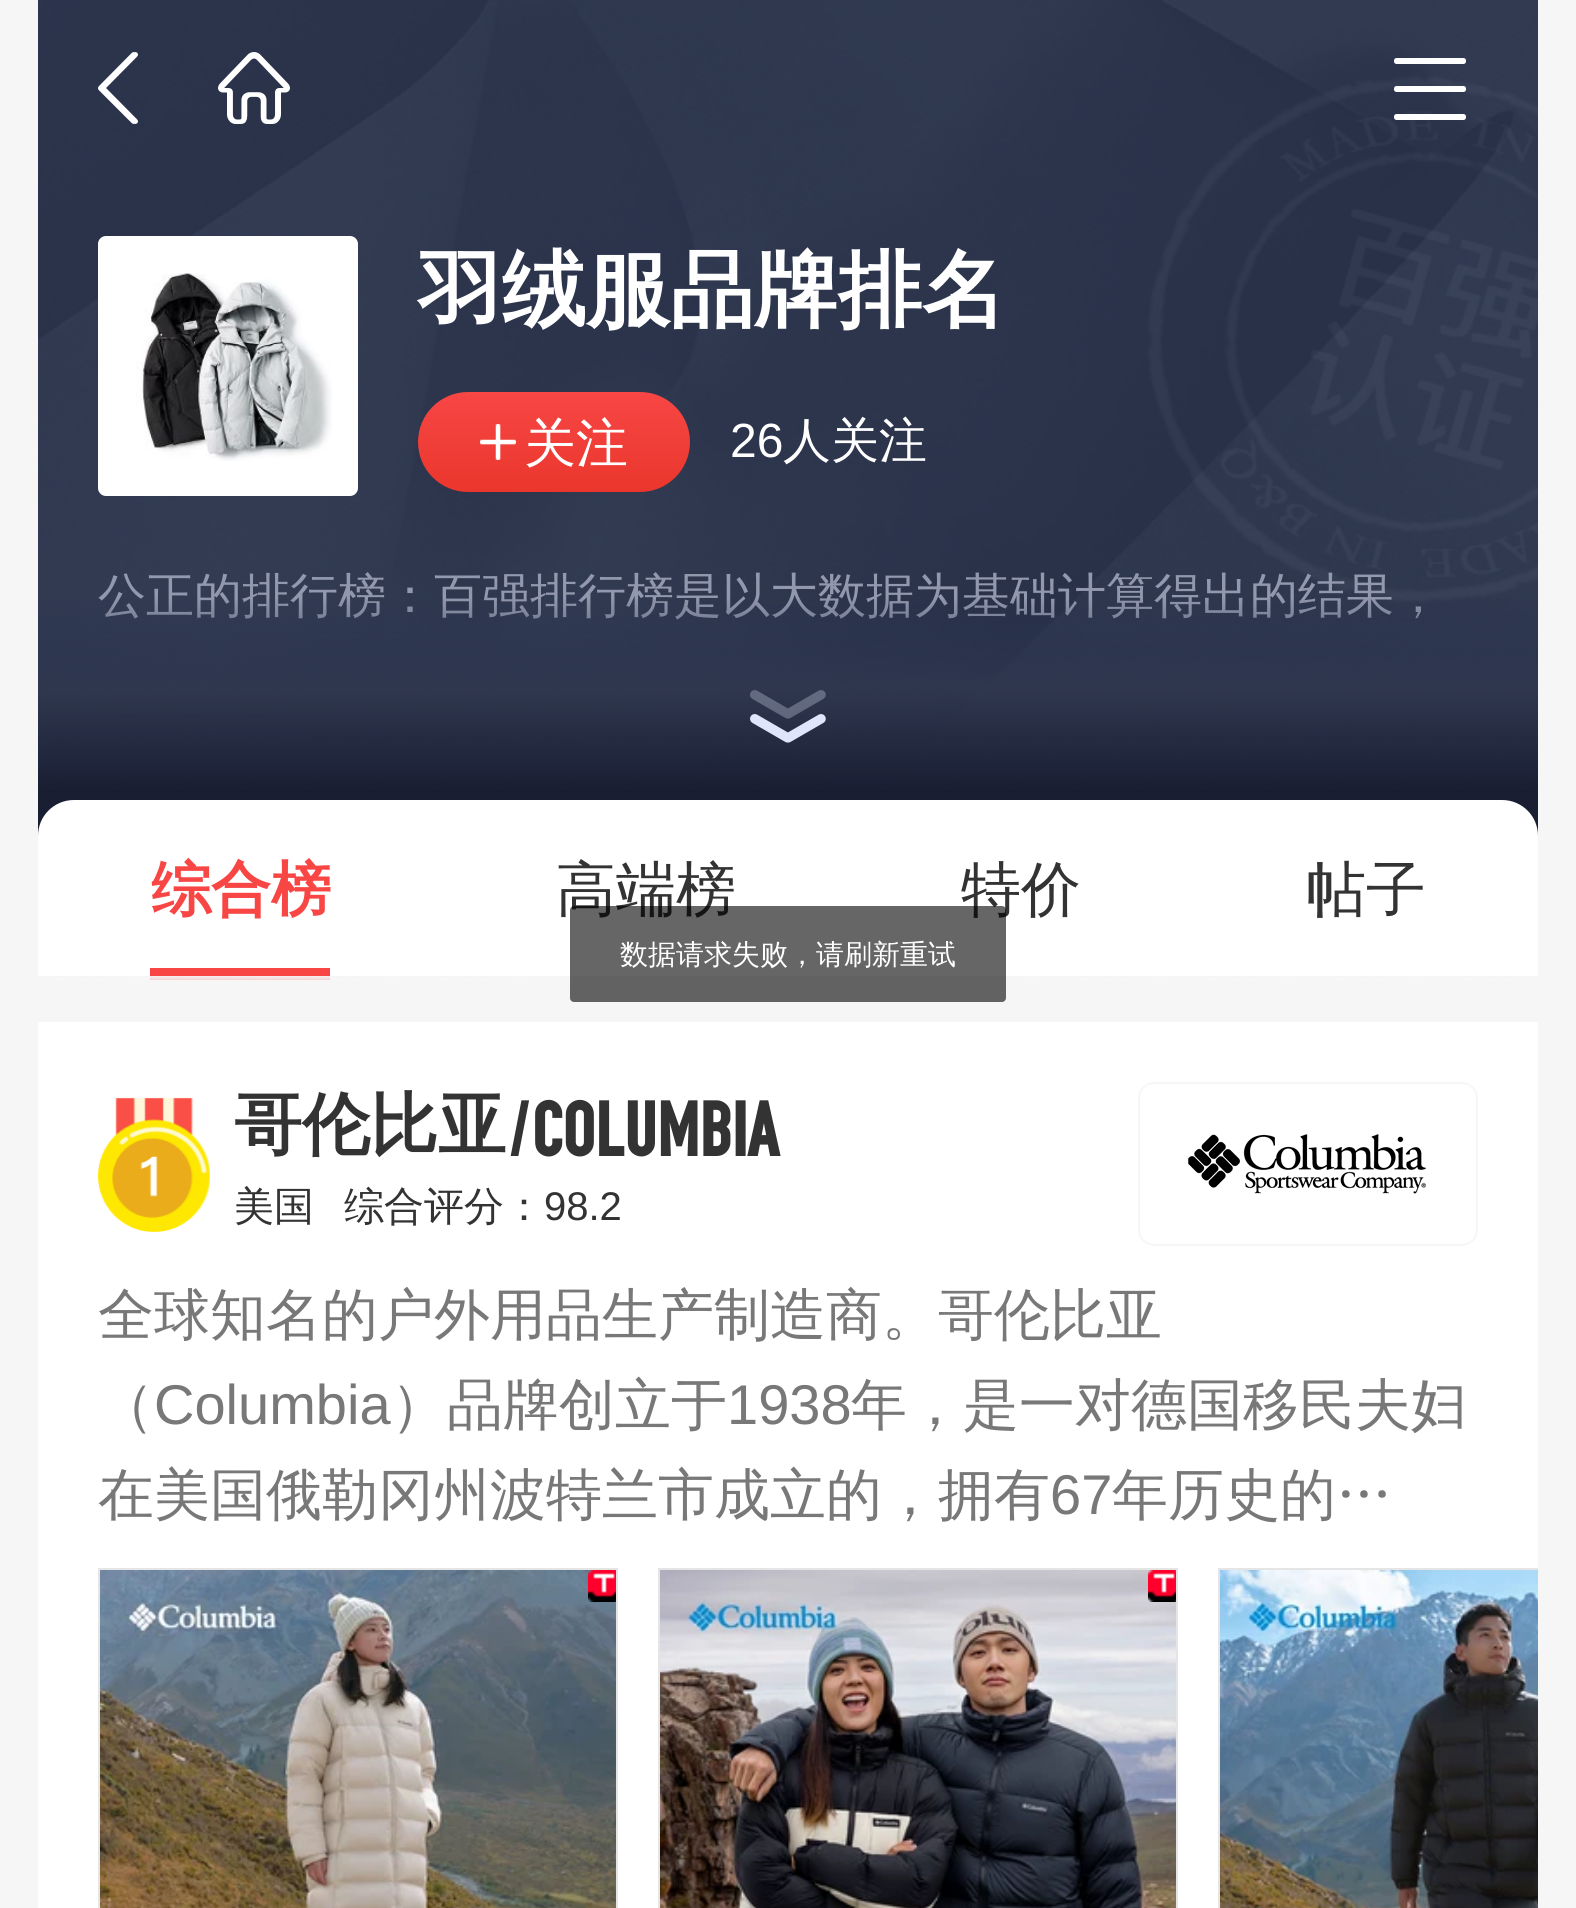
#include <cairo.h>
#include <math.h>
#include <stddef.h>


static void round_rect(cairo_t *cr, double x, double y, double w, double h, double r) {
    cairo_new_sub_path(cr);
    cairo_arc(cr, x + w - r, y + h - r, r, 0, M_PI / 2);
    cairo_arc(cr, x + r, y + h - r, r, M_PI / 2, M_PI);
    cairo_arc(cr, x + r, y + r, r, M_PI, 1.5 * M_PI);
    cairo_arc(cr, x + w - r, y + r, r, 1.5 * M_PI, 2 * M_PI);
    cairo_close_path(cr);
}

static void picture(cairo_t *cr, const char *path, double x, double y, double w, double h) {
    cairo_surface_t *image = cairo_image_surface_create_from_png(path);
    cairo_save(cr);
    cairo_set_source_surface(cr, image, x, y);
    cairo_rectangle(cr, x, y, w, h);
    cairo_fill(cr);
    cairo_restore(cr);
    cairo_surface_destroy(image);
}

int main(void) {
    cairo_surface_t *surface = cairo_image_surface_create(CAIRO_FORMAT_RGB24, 1576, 1908);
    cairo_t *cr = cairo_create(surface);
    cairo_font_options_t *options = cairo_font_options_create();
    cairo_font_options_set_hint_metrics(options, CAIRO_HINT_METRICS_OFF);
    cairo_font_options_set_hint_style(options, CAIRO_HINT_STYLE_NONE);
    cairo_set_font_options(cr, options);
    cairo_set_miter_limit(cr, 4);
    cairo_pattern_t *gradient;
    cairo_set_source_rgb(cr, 0.961, 0.961, 0.961);
    cairo_paint(cr);
    picture(cr, "img4.png", 38, 0, 1500, 787);
    picture(cr, "img1.png", 98, 52, 40, 72);
    picture(cr, "img2.png", 218, 52, 72, 72);
    picture(cr, "img3.png", 1394, 58, 72, 62);
    cairo_set_source_rgb(cr, 1, 1, 1);
    round_rect(cr, 98, 236, 260, 260, 8);
    cairo_fill(cr);
    picture(cr, "img5.png", 136, 273, 196, 188);
    cairo_select_font_face(cr, "WenQuanYi Zen Hei", CAIRO_FONT_SLANT_NORMAL, CAIRO_FONT_WEIGHT_BOLD);
    cairo_set_font_size(cr, 84);
    cairo_move_to(cr, 418, 319);
    cairo_show_text(cr, "羽绒服品牌排名");
    gradient = cairo_pattern_create_linear(554, 392, 554, 492);
    cairo_pattern_add_color_stop_rgba(gradient, 0, 0.969, 0.275, 0.271, 1);
    cairo_pattern_add_color_stop_rgba(gradient, 1, 0.918, 0.212, 0.173, 1);
    cairo_set_source(cr, gradient);
    cairo_pattern_destroy(gradient);
    round_rect(cr, 418, 392, 272, 100, 50);
    cairo_fill(cr);
    picture(cr, "img6.png", 480, 424, 36, 36);
    cairo_select_font_face(cr, "WenQuanYi Zen Hei Medium", CAIRO_FONT_SLANT_NORMAL, CAIRO_FONT_WEIGHT_NORMAL);
    cairo_set_font_size(cr, 52);
    cairo_set_source_rgb(cr, 1, 1, 1);
    cairo_move_to(cr, 524, 461);
    cairo_show_text(cr, "关注");
    cairo_select_font_face(cr, "Liberation Sans", CAIRO_FONT_SLANT_NORMAL, CAIRO_FONT_WEIGHT_NORMAL);
    cairo_set_font_size(cr, 48);
    cairo_move_to(cr, 730, 457);
    cairo_show_text(cr, "26");
    cairo_select_font_face(cr, "WenQuanYi Zen Hei Medium", CAIRO_FONT_SLANT_NORMAL, CAIRO_FONT_WEIGHT_NORMAL);
    cairo_move_to(cr, 783, 457);
    cairo_show_text(cr, "人关注");
    cairo_set_source_rgb(cr, 0.573, 0.596, 0.678);
    cairo_move_to(cr, 98, 612);
    cairo_show_text(cr, "公正的排行榜：百强排行榜是以大数据为基础计算得出的结果，");
    picture(cr, "img7.png", 38, 599, 1500, 237);
    picture(cr, "img8.png", 750, 690, 76, 53);
    cairo_set_source_rgb(cr, 1, 1, 1);
    cairo_new_path(cr);
    cairo_move_to(cr, 74, 800);
    cairo_line_to(cr, 1502, 800);
    cairo_curve_to(cr, 1522, 800, 1538, 816, 1538, 836);
    cairo_line_to(cr, 1538, 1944);
    cairo_line_to(cr, 38, 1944);
    cairo_line_to(cr, 38, 836);
    cairo_curve_to(cr, 38, 816, 54, 800, 74, 800);
    cairo_close_path(cr);
    cairo_fill(cr);
    cairo_set_source_rgb(cr, 0.969, 0.275, 0.271);
    cairo_rectangle(cr, 150, 968, 180, 12);
    cairo_fill(cr);
    cairo_select_font_face(cr, "WenQuanYi Zen Hei", CAIRO_FONT_SLANT_NORMAL, CAIRO_FONT_WEIGHT_BOLD);
    cairo_set_font_size(cr, 60);
    cairo_move_to(cr, 151, 910);
    cairo_show_text(cr, "综合榜");
    cairo_select_font_face(cr, "WenQuanYi Zen Hei Medium", CAIRO_FONT_SLANT_NORMAL, CAIRO_FONT_WEIGHT_NORMAL);
    cairo_set_source_rgb(cr, 0.2, 0.2, 0.2);
    cairo_move_to(cr, 556, 910);
    cairo_show_text(cr, "高端榜");
    cairo_move_to(cr, 961, 910);
    cairo_show_text(cr, "特价");
    cairo_move_to(cr, 1306, 910);
    cairo_show_text(cr, "帖子");
    cairo_set_source_rgb(cr, 0.961, 0.961, 0.961);
    cairo_rectangle(cr, 38, 980, 1500, 42);
    cairo_fill(cr);
    picture(cr, "img9.png", 98, 1097, 112, 135);
    cairo_select_font_face(cr, "WenQuanYi Zen Hei", CAIRO_FONT_SLANT_NORMAL, CAIRO_FONT_WEIGHT_BOLD);
    cairo_set_font_size(cr, 68);
    cairo_set_source_rgb(cr, 0.2, 0.2, 0.2);
    cairo_move_to(cr, 234, 1148);
    cairo_show_text(cr, "哥伦比亚");
    cairo_select_font_face(cr, "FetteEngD", CAIRO_FONT_SLANT_NORMAL, CAIRO_FONT_WEIGHT_BOLD);
    cairo_set_font_size(cr, 80);
    cairo_move_to(cr, 506, 1156);
    cairo_show_text(cr, "/COLUMBIA");
    cairo_select_font_face(cr, "WenQuanYi Zen Hei Medium", CAIRO_FONT_SLANT_NORMAL, CAIRO_FONT_WEIGHT_NORMAL);
    cairo_set_font_size(cr, 40);
    cairo_move_to(cr, 234, 1220);
    cairo_show_text(cr, "美国");
    cairo_move_to(cr, 344, 1220);
    cairo_show_text(cr, "综合评分：");
    cairo_select_font_face(cr, "Liberation Sans", CAIRO_FONT_SLANT_NORMAL, CAIRO_FONT_WEIGHT_NORMAL);
    cairo_move_to(cr, 544, 1220);
    cairo_show_text(cr, "98.2");
    round_rect(cr, 1139, 1083, 338, 162, 15);
    cairo_set_source_rgb(cr, 0.961, 0.961, 0.961);
    cairo_stroke(cr);
    picture(cr, "img10.png", 1188, 1134, 238, 60);
    cairo_select_font_face(cr, "WenQuanYi Zen Hei Medium", CAIRO_FONT_SLANT_NORMAL, CAIRO_FONT_WEIGHT_NORMAL);
    cairo_set_font_size(cr, 56);
    cairo_set_source_rgb(cr, 0.471, 0.471, 0.471);
    cairo_move_to(cr, 98, 1334);
    cairo_show_text(cr, "全球知名的户外用品生产制造商。哥伦比亚");
    cairo_move_to(cr, 98, 1424);
    cairo_show_text(cr, "（");
    cairo_select_font_face(cr, "Liberation Sans", CAIRO_FONT_SLANT_NORMAL, CAIRO_FONT_WEIGHT_NORMAL);
    cairo_move_to(cr, 154, 1424);
    cairo_show_text(cr, "Columbia");
    cairo_select_font_face(cr, "WenQuanYi Zen Hei Medium", CAIRO_FONT_SLANT_NORMAL, CAIRO_FONT_WEIGHT_NORMAL);
    cairo_move_to(cr, 391, 1424);
    cairo_show_text(cr, "）品牌创立于");
    cairo_select_font_face(cr, "Liberation Sans", CAIRO_FONT_SLANT_NORMAL, CAIRO_FONT_WEIGHT_NORMAL);
    cairo_move_to(cr, 727, 1424);
    cairo_show_text(cr, "1938");
    cairo_select_font_face(cr, "WenQuanYi Zen Hei Medium", CAIRO_FONT_SLANT_NORMAL, CAIRO_FONT_WEIGHT_NORMAL);
    cairo_move_to(cr, 851, 1424);
    cairo_show_text(cr, "年，是一对德国移民夫妇");
    cairo_move_to(cr, 98, 1514);
    cairo_show_text(cr, "在美国俄勒冈州波特兰市成立的，拥有");
    cairo_select_font_face(cr, "Liberation Sans", CAIRO_FONT_SLANT_NORMAL, CAIRO_FONT_WEIGHT_NORMAL);
    cairo_move_to(cr, 1050, 1514);
    cairo_show_text(cr, "67");
    cairo_select_font_face(cr, "WenQuanYi Zen Hei Medium", CAIRO_FONT_SLANT_NORMAL, CAIRO_FONT_WEIGHT_NORMAL);
    cairo_move_to(cr, 1112, 1514);
    cairo_show_text(cr, "年历史的…");
    cairo_rectangle(cr, 99, 1569, 518, 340);
    cairo_set_source_rgb(cr, 0.898, 0.898, 0.898);
    cairo_stroke(cr);
    picture(cr, "img11.png", 100, 1570, 516, 338);
    picture(cr, "img12.png", 588, 1570, 28, 32);
    cairo_rectangle(cr, 659, 1569, 518, 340);
    cairo_stroke(cr);
    picture(cr, "img13.png", 660, 1570, 516, 338);
    picture(cr, "img14.png", 1148, 1570, 28, 32);
    cairo_save(cr);
    cairo_rectangle(cr, 38, 1568, 1500, 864);
    cairo_clip(cr);
    cairo_rectangle(cr, 1219, 1569, 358, 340);
    cairo_stroke(cr);
    cairo_restore(cr);
    picture(cr, "img15.png", 1220, 1570, 318, 338);
    picture(cr, "img16.png", 38, 976, 1500, 4);
    cairo_set_source_rgba(cr, 0, 0, 0, 0.6);
    round_rect(cr, 570, 906, 436, 96, 4);
    cairo_fill(cr);
    cairo_set_font_size(cr, 28);
    cairo_set_source_rgb(cr, 1, 1, 1);
    cairo_move_to(cr, 620, 964);
    cairo_show_text(cr, "数据请求失败，请刷新重试");
    cairo_surface_write_to_png(surface, "page.png");
    cairo_font_options_destroy(options);
    cairo_destroy(cr);
    cairo_surface_destroy(surface);
    return 0;
}
